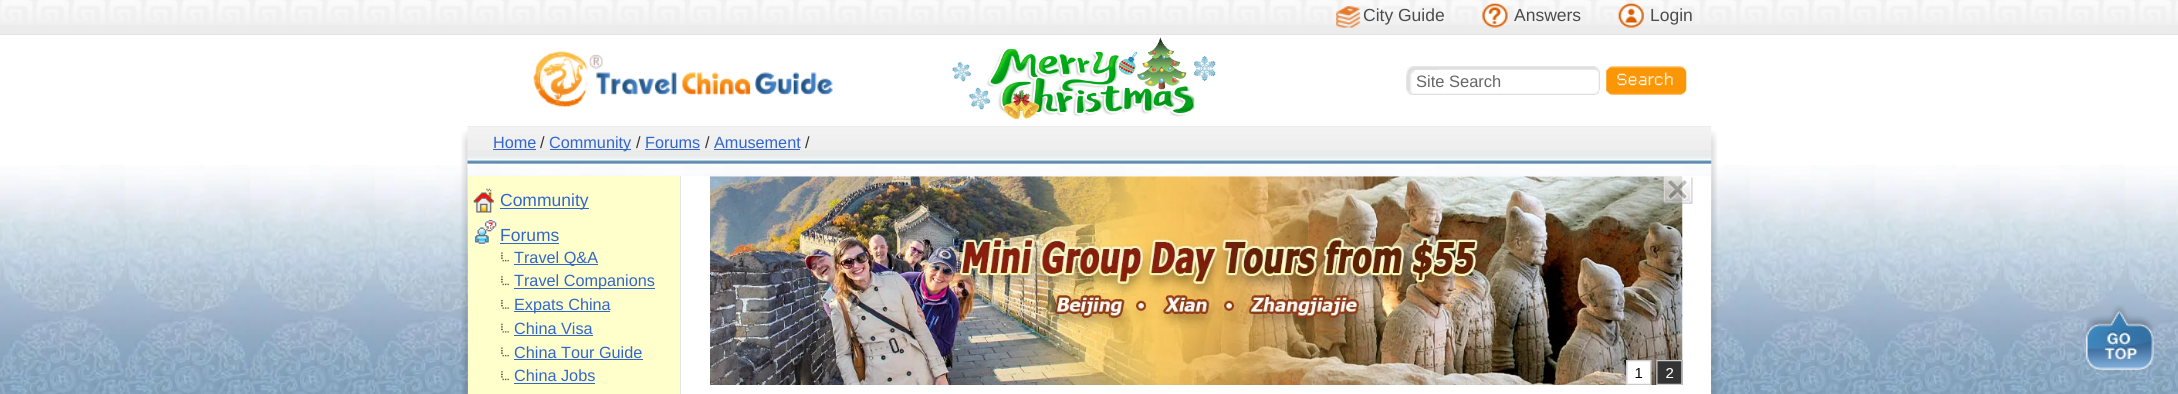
#include <cairo.h>
#include <math.h>
#include <stddef.h>


static void picture(cairo_t *cr, const char *path, double x, double y, double w, double h) {
    cairo_surface_t *image = cairo_image_surface_create_from_png(path);
    cairo_save(cr);
    cairo_set_source_surface(cr, image, x, y);
    cairo_rectangle(cr, x, y, w, h);
    cairo_fill(cr);
    cairo_restore(cr);
    cairo_surface_destroy(image);
}

int main(void) {
    cairo_surface_t *surface = cairo_image_surface_create(CAIRO_FORMAT_RGB24, 2178, 394);
    cairo_t *cr = cairo_create(surface);
    cairo_font_options_t *options = cairo_font_options_create();
    cairo_font_options_set_hint_metrics(options, CAIRO_HINT_METRICS_OFF);
    cairo_font_options_set_hint_style(options, CAIRO_HINT_STYLE_NONE);
    cairo_set_font_options(cr, options);
    cairo_set_miter_limit(cr, 4);
    cairo_set_source_rgb(cr, 1, 1, 1);
    cairo_paint(cr);
    picture(cr, "img1.png", 0, 165, 2178, 229);
    cairo_set_source_rgb(cr, 0.922, 0.922, 0.922);
    cairo_rectangle(cr, 0, 25, 2178, 9);
    cairo_fill(cr);
    picture(cr, "img2.png", 0, 0, 2178, 25);
    cairo_set_source_rgb(cr, 0.89, 0.89, 0.89);
    cairo_rectangle(cr, 0, 34, 2178, 1);
    cairo_fill(cr);
    picture(cr, "img3.png", 1336, 6, 25, 22);
    cairo_select_font_face(cr, "Liberation Sans", CAIRO_FONT_SLANT_NORMAL, CAIRO_FONT_WEIGHT_NORMAL);
    cairo_set_font_size(cr, 17.5);
    cairo_set_source_rgb(cr, 0.294, 0.294, 0.294);
    cairo_move_to(cr, 1363, 21);
    cairo_show_text(cr, "City Guide");
    picture(cr, "img4.png", 1482, 3, 26, 25);
    cairo_move_to(cr, 1514, 21);
    cairo_show_text(cr, "Answers");
    picture(cr, "img5.png", 1618, 3, 26, 25);
    cairo_move_to(cr, 1650, 21);
    cairo_show_text(cr, "Login");
    picture(cr, "img6.png", 533, 51, 300, 56);
    picture(cr, "img7.png", 952, 37, 264, 83);
    picture(cr, "img8.png", 1406, 66, 194, 29);
    cairo_set_source_rgb(cr, 1, 1, 1);
    cairo_rectangle(cr, 1415, 70, 180, 23);
    cairo_fill(cr);
    cairo_set_font_size(cr, 16.5);
    cairo_set_source_rgb(cr, 0.4, 0.4, 0.4);
    cairo_move_to(cr, 1416, 87);
    cairo_show_text(cr, "Site Search");
    picture(cr, "img9.png", 1606, 66, 81, 29);
    picture(cr, "img12.png", 467, 126, 1245, 38);
    picture(cr, "img10.png", 461, 131, 7, 263);
    picture(cr, "img11.png", 1711, 131, 6, 263);
    cairo_set_source_rgb(cr, 0.922, 0.922, 0.922);
    cairo_rectangle(cr, 468, 126, 1243, 1);
    cairo_fill(cr);
    cairo_set_font_size(cr, 16.25);
    cairo_set_source_rgb(cr, 0.2, 0.4, 0.8);
    cairo_move_to(cr, 493, 148);
    cairo_show_text(cr, "Home");
    cairo_rectangle(cr, 493, 149, 43, 1);
    cairo_fill(cr);
    cairo_set_source_rgb(cr, 0.2, 0.2, 0.2);
    cairo_move_to(cr, 540, 148);
    cairo_show_text(cr, "/");
    cairo_set_source_rgb(cr, 0.2, 0.4, 0.8);
    cairo_rectangle(cr, 550, 149, 81, 1);
    cairo_fill(cr);
    cairo_move_to(cr, 549, 148);
    cairo_show_text(cr, "Community");
    cairo_set_source_rgb(cr, 0.2, 0.2, 0.2);
    cairo_move_to(cr, 636, 148);
    cairo_show_text(cr, "/");
    cairo_set_source_rgb(cr, 0.2, 0.4, 0.8);
    cairo_move_to(cr, 645, 148);
    cairo_show_text(cr, "Forums");
    cairo_rectangle(cr, 645, 149, 55, 1);
    cairo_fill(cr);
    cairo_set_source_rgb(cr, 0.2, 0.2, 0.2);
    cairo_move_to(cr, 705, 148);
    cairo_show_text(cr, "/");
    cairo_set_source_rgb(cr, 0.2, 0.4, 0.8);
    cairo_move_to(cr, 714, 148);
    cairo_show_text(cr, "Amusement");
    cairo_rectangle(cr, 714, 149, 86, 1);
    cairo_fill(cr);
    cairo_set_source_rgb(cr, 0.2, 0.2, 0.2);
    cairo_move_to(cr, 805, 148);
    cairo_show_text(cr, "/");
    cairo_set_source_rgb(cr, 1, 1, 1);
    cairo_rectangle(cr, 681, 176, 1030, 218);
    cairo_fill(cr);
    cairo_set_source_rgb(cr, 1, 1, 0.8);
    cairo_rectangle(cr, 468, 176, 212, 218);
    cairo_fill(cr);
    cairo_set_source_rgb(cr, 0.894, 0.894, 0.894);
    cairo_rectangle(cr, 680, 176, 1, 218);
    cairo_fill(cr);
    picture(cr, "img13.png", 473, 188, 21, 25);
    cairo_set_source_rgb(cr, 0.2, 0.4, 0.8);
    cairo_rectangle(cr, 500, 208, 89, 1);
    cairo_fill(cr);
    cairo_set_font_size(cr, 17.5);
    cairo_move_to(cr, 500, 206);
    cairo_show_text(cr, "Community");
    picture(cr, "img14.png", 473, 218, 25, 27);
    cairo_move_to(cr, 500, 241);
    cairo_show_text(cr, "Forums");
    cairo_rectangle(cr, 500, 243, 59, 1);
    cairo_fill(cr);
    picture(cr, "img15.png", 501, 252, 8, 10);
    cairo_rectangle(cr, 514, 264, 84, 1);
    cairo_fill(cr);
    cairo_set_font_size(cr, 16.25);
    cairo_move_to(cr, 514, 263);
    cairo_show_text(cr, "Travel Q&A");
    picture(cr, "img16.png", 501, 276, 8, 10);
    cairo_rectangle(cr, 514, 288, 141, 1);
    cairo_fill(cr);
    cairo_move_to(cr, 514, 286);
    cairo_show_text(cr, "Travel Companions");
    picture(cr, "img17.png", 501, 300, 8, 9);
    cairo_rectangle(cr, 514, 311, 96, 1);
    cairo_fill(cr);
    cairo_move_to(cr, 514, 310);
    cairo_show_text(cr, "Expats China");
    picture(cr, "img18.png", 501, 323, 8, 10);
    cairo_move_to(cr, 514, 334);
    cairo_show_text(cr, "China Visa");
    cairo_rectangle(cr, 514, 335, 79, 1);
    cairo_fill(cr);
    picture(cr, "img15.png", 501, 347, 8, 10);
    cairo_move_to(cr, 514, 358);
    cairo_show_text(cr, "China Tour Guide");
    cairo_rectangle(cr, 514, 359, 129, 1);
    cairo_fill(cr);
    picture(cr, "img16.png", 501, 371, 8, 10);
    cairo_move_to(cr, 514, 381);
    cairo_show_text(cr, "China Jobs");
    cairo_rectangle(cr, 514, 383, 81, 1);
    cairo_fill(cr);
    picture(cr, "img19.png", 710, 176, 973, 209);
    picture(cr, "img20.png", 1663, 176, 30, 28);
    picture(cr, "img21.png", 2086, 305, 68, 65);
    cairo_surface_write_to_png(surface, "page.png");
    cairo_font_options_destroy(options);
    cairo_destroy(cr);
    cairo_surface_destroy(surface);
    return 0;
}
